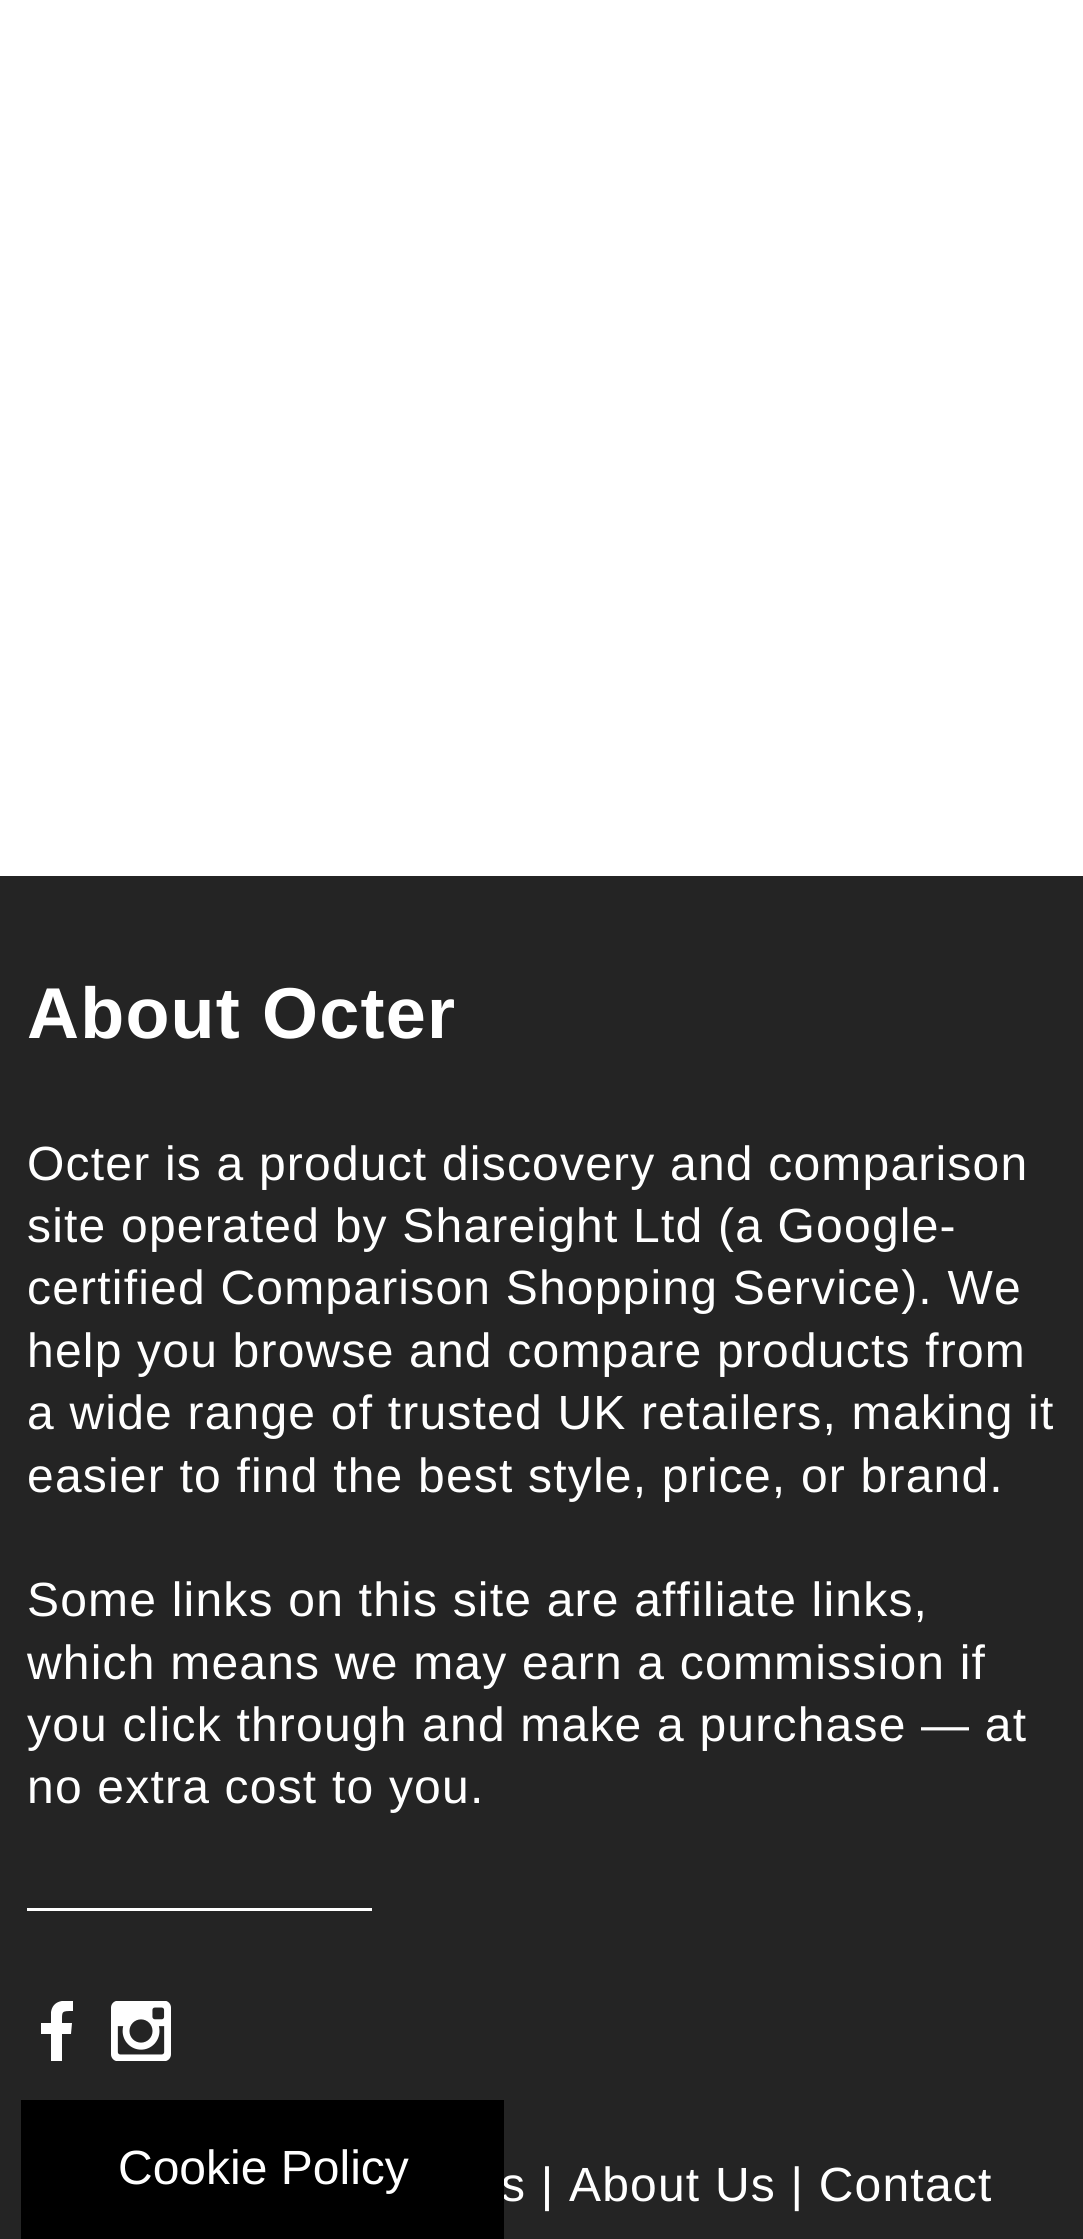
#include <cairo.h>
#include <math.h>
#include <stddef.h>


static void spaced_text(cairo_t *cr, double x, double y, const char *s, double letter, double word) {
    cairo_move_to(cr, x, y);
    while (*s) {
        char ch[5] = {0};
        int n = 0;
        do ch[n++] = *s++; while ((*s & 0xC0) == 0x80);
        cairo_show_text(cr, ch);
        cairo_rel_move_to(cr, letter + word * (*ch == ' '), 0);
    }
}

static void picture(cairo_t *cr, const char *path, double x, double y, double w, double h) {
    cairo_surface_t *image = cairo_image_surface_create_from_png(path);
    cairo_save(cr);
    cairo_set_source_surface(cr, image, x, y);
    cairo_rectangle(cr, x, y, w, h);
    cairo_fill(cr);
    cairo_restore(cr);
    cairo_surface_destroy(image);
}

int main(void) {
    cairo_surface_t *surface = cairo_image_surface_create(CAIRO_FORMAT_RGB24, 1083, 2239);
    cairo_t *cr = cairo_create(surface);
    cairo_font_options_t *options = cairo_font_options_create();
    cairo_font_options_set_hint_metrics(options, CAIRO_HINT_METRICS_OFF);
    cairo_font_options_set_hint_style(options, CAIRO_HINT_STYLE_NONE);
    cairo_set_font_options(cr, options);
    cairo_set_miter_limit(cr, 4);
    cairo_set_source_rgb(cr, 1, 1, 1);
    cairo_paint(cr);
    cairo_set_source_rgb(cr, 0.141, 0.141, 0.141);
    cairo_rectangle(cr, 0, 876, 1083, 1363);
    cairo_fill(cr);
    cairo_select_font_face(cr, "Liberation Sans", CAIRO_FONT_SLANT_NORMAL, CAIRO_FONT_WEIGHT_BOLD);
    cairo_set_font_size(cr, 72);
    cairo_set_source_rgb(cr, 1, 1, 1);
    spaced_text(cr, 27, 1038, "About Octer", 1.2, 0);
    cairo_select_font_face(cr, "Liberation Sans", CAIRO_FONT_SLANT_NORMAL, CAIRO_FONT_WEIGHT_NORMAL);
    cairo_set_font_size(cr, 48);
    spaced_text(cr, 27, 1180, "Octer is a product discovery and comparison", 1.2, 0);
    spaced_text(cr, 27, 1242, "site operated by Shareight Ltd (a Google-", 1.2, 0);
    spaced_text(cr, 27, 1304, "certified Comparison Shopping Service). We", 1.2, 0);
    spaced_text(cr, 27, 1367, "help you browse and compare products from", 1.2, 0);
    spaced_text(cr, 27, 1429, "a wide range of trusted UK retailers, making it", 1.2, 0);
    spaced_text(cr, 27, 1492, "easier to find the best style, price, or brand.", 1.2, 0);
    spaced_text(cr, 27, 1616, "Some links on this site are affiliate links,", 1.2, 0);
    spaced_text(cr, 27, 1679, "which means we may earn a commission if", 1.2, 0);
    spaced_text(cr, 27, 1741, "you click through and make a purchase — at", 1.2, 0);
    spaced_text(cr, 27, 1803, "no extra cost to you.", 1.2, 0);
    cairo_rectangle(cr, 27, 1908, 345, 3);
    cairo_fill(cr);
    cairo_save(cr);
    cairo_rectangle(cr, 27, 2001, 60, 60);
    cairo_clip(cr);
    cairo_new_path(cr);
    cairo_move_to(cr, 71, 2034);
    cairo_line_to(cr, 72, 2023);
    cairo_line_to(cr, 62, 2023);
    cairo_curve_to(cr, 62, 2011, 61, 2011, 73, 2011);
    cairo_line_to(cr, 73, 2001);
    cairo_curve_to(cr, 64, 2000, 53, 2000, 51, 2012);
    cairo_line_to(cr, 51, 2023);
    cairo_line_to(cr, 41, 2023);
    cairo_line_to(cr, 41, 2034);
    cairo_line_to(cr, 51, 2034);
    cairo_line_to(cr, 51, 2061);
    cairo_line_to(cr, 62, 2061);
    cairo_line_to(cr, 62, 2034);
    cairo_close_path(cr);
    cairo_fill(cr);
    cairo_restore(cr);
    picture(cr, "img1.png", 111, 2001, 60, 60);
    spaced_text(cr, 501, 2201, "s | About Us | Contact", 1.2, 0);
    cairo_set_source_rgb(cr, 0, 0, 0);
    cairo_rectangle(cr, 21, 2100, 483, 139);
    cairo_fill(cr);
    cairo_set_source_rgb(cr, 1, 1, 1);
    cairo_move_to(cr, 118, 2184);
    cairo_show_text(cr, "Cookie Policy");
    cairo_surface_write_to_png(surface, "page.png");
    cairo_font_options_destroy(options);
    cairo_destroy(cr);
    cairo_surface_destroy(surface);
    return 0;
}
